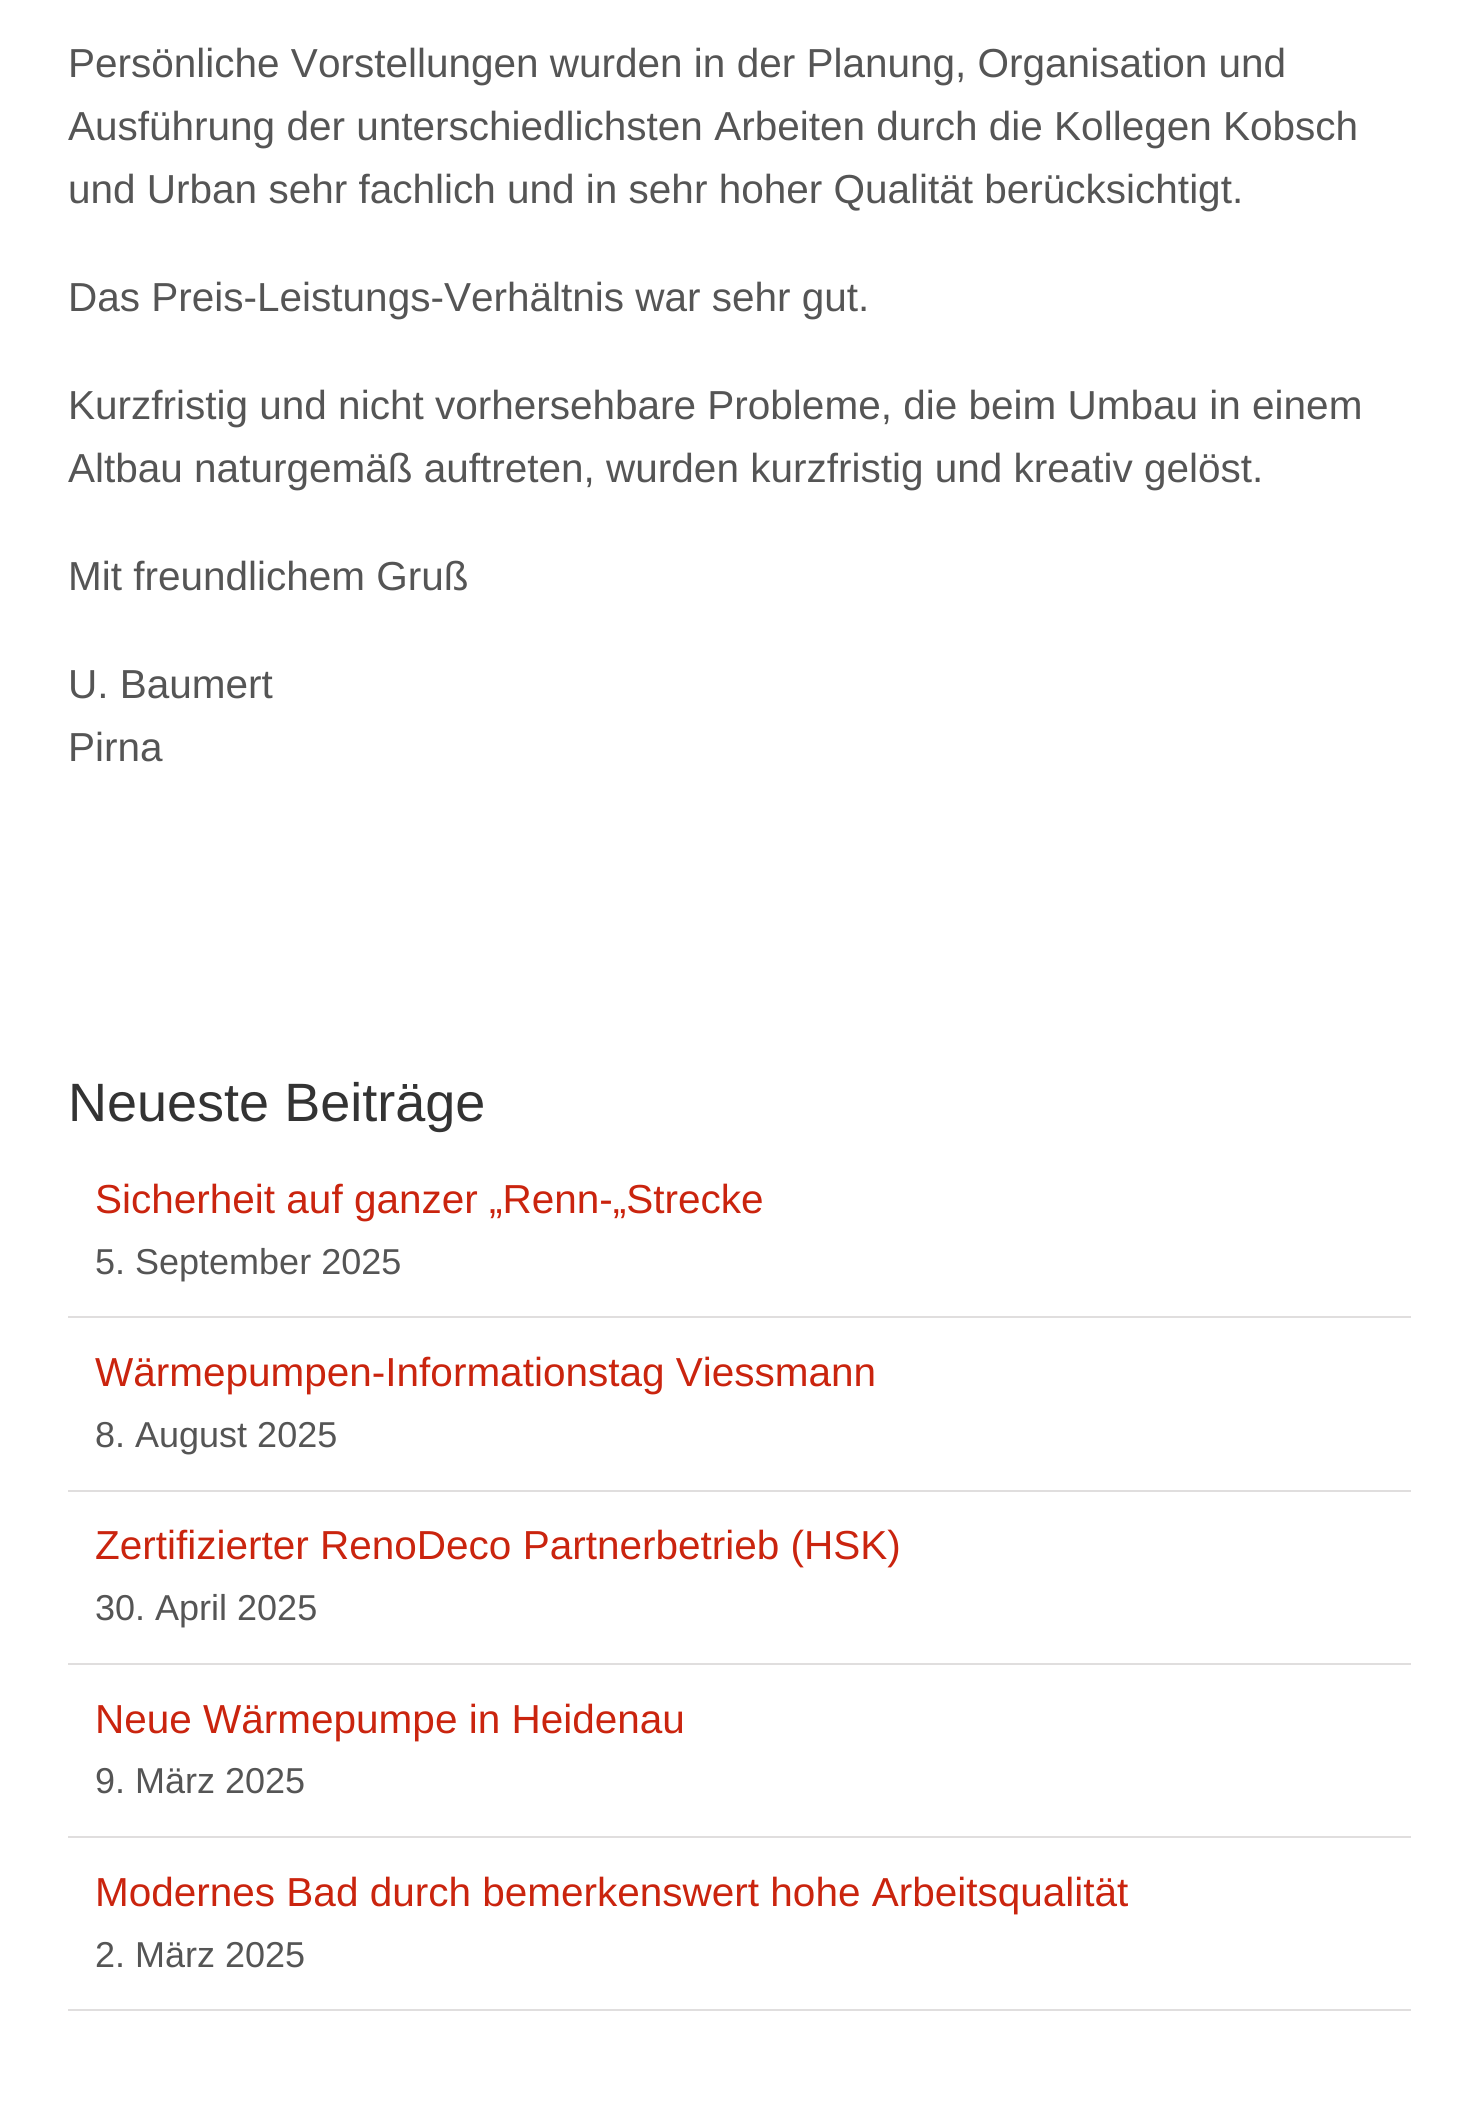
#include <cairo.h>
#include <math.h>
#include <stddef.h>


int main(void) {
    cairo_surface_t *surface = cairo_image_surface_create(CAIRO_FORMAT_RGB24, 1478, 2109);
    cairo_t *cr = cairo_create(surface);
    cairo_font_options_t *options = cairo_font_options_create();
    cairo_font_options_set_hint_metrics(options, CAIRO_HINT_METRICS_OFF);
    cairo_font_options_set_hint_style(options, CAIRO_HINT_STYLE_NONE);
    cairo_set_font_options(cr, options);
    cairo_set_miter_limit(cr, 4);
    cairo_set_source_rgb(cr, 1, 1, 1);
    cairo_paint(cr);
    cairo_select_font_face(cr, "Liberation Sans", CAIRO_FONT_SLANT_NORMAL, CAIRO_FONT_WEIGHT_NORMAL);
    cairo_set_font_size(cr, 40.5);
    cairo_set_source_rgb(cr, 0.333, 0.333, 0.333);
    cairo_move_to(cr, 68, 77);
    cairo_show_text(cr, "Persönliche Vorstellungen wurden in der Planung, Organisation und");
    cairo_move_to(cr, 68, 140);
    cairo_show_text(cr, "Ausführung der unterschiedlichsten Arbeiten durch die Kollegen Kobsch");
    cairo_move_to(cr, 68, 203);
    cairo_show_text(cr, "und Urban sehr fachlich und in sehr hoher Qualität berücksichtigt.");
    cairo_move_to(cr, 68, 311);
    cairo_show_text(cr, "Das Preis-Leistungs-Verhältnis war sehr gut.");
    cairo_move_to(cr, 68, 419);
    cairo_show_text(cr, "Kurzfristig und nicht vorhersehbare Probleme, die beim Umbau in einem");
    cairo_move_to(cr, 68, 482);
    cairo_show_text(cr, "Altbau naturgemäß auftreten, wurden kurzfristig und kreativ gelöst.");
    cairo_move_to(cr, 68, 590);
    cairo_show_text(cr, "Mit freundlichem Gruß");
    cairo_move_to(cr, 68, 698);
    cairo_show_text(cr, "U. Baumert");
    cairo_move_to(cr, 68, 761);
    cairo_show_text(cr, "Pirna");
    cairo_set_font_size(cr, 54);
    cairo_set_source_rgb(cr, 0.2, 0.2, 0.2);
    cairo_move_to(cr, 68, 1121);
    cairo_show_text(cr, "Neueste Beiträge");
    cairo_set_source_rgb(cr, 0.878, 0.871, 0.871);
    cairo_rectangle(cr, 68, 1316, 1343, 2);
    cairo_fill(cr);
    cairo_set_font_size(cr, 40.5);
    cairo_set_source_rgb(cr, 0.792, 0.141, 0.055);
    cairo_move_to(cr, 95, 1213);
    cairo_show_text(cr, "Sicherheit auf ganzer „Renn-„Strecke");
    cairo_set_font_size(cr, 36);
    cairo_set_source_rgb(cr, 0.333, 0.333, 0.333);
    cairo_move_to(cr, 95, 1274);
    cairo_show_text(cr, "5. September 2025");
    cairo_set_source_rgb(cr, 0.878, 0.871, 0.871);
    cairo_rectangle(cr, 68, 1490, 1343, 2);
    cairo_fill(cr);
    cairo_set_font_size(cr, 40.5);
    cairo_set_source_rgb(cr, 0.792, 0.141, 0.055);
    cairo_move_to(cr, 95, 1386);
    cairo_show_text(cr, "Wärmepumpen-Informationstag Viessmann");
    cairo_set_font_size(cr, 36);
    cairo_set_source_rgb(cr, 0.333, 0.333, 0.333);
    cairo_move_to(cr, 95, 1447);
    cairo_show_text(cr, "8. August 2025");
    cairo_set_source_rgb(cr, 0.878, 0.871, 0.871);
    cairo_rectangle(cr, 68, 1663, 1343, 2);
    cairo_fill(cr);
    cairo_set_font_size(cr, 40.5);
    cairo_set_source_rgb(cr, 0.792, 0.141, 0.055);
    cairo_move_to(cr, 95, 1559);
    cairo_show_text(cr, "Zertifizierter RenoDeco Partnerbetrieb (HSK)");
    cairo_set_font_size(cr, 36);
    cairo_set_source_rgb(cr, 0.333, 0.333, 0.333);
    cairo_move_to(cr, 95, 1620);
    cairo_show_text(cr, "30. April 2025");
    cairo_set_source_rgb(cr, 0.878, 0.871, 0.871);
    cairo_rectangle(cr, 68, 1836, 1343, 2);
    cairo_fill(cr);
    cairo_set_font_size(cr, 40.5);
    cairo_set_source_rgb(cr, 0.792, 0.141, 0.055);
    cairo_move_to(cr, 95, 1733);
    cairo_show_text(cr, "Neue Wärmepumpe in Heidenau");
    cairo_set_font_size(cr, 36);
    cairo_set_source_rgb(cr, 0.333, 0.333, 0.333);
    cairo_move_to(cr, 95, 1793);
    cairo_show_text(cr, "9. März 2025");
    cairo_set_source_rgb(cr, 0.878, 0.871, 0.871);
    cairo_rectangle(cr, 68, 2009, 1343, 2);
    cairo_fill(cr);
    cairo_set_font_size(cr, 40.5);
    cairo_set_source_rgb(cr, 0.792, 0.141, 0.055);
    cairo_move_to(cr, 95, 1906);
    cairo_show_text(cr, "Modernes Bad durch bemerkenswert hohe Arbeitsqualität");
    cairo_set_font_size(cr, 36);
    cairo_set_source_rgb(cr, 0.333, 0.333, 0.333);
    cairo_move_to(cr, 95, 1967);
    cairo_show_text(cr, "2. März 2025");
    cairo_surface_write_to_png(surface, "page.png");
    cairo_font_options_destroy(options);
    cairo_destroy(cr);
    cairo_surface_destroy(surface);
    return 0;
}
